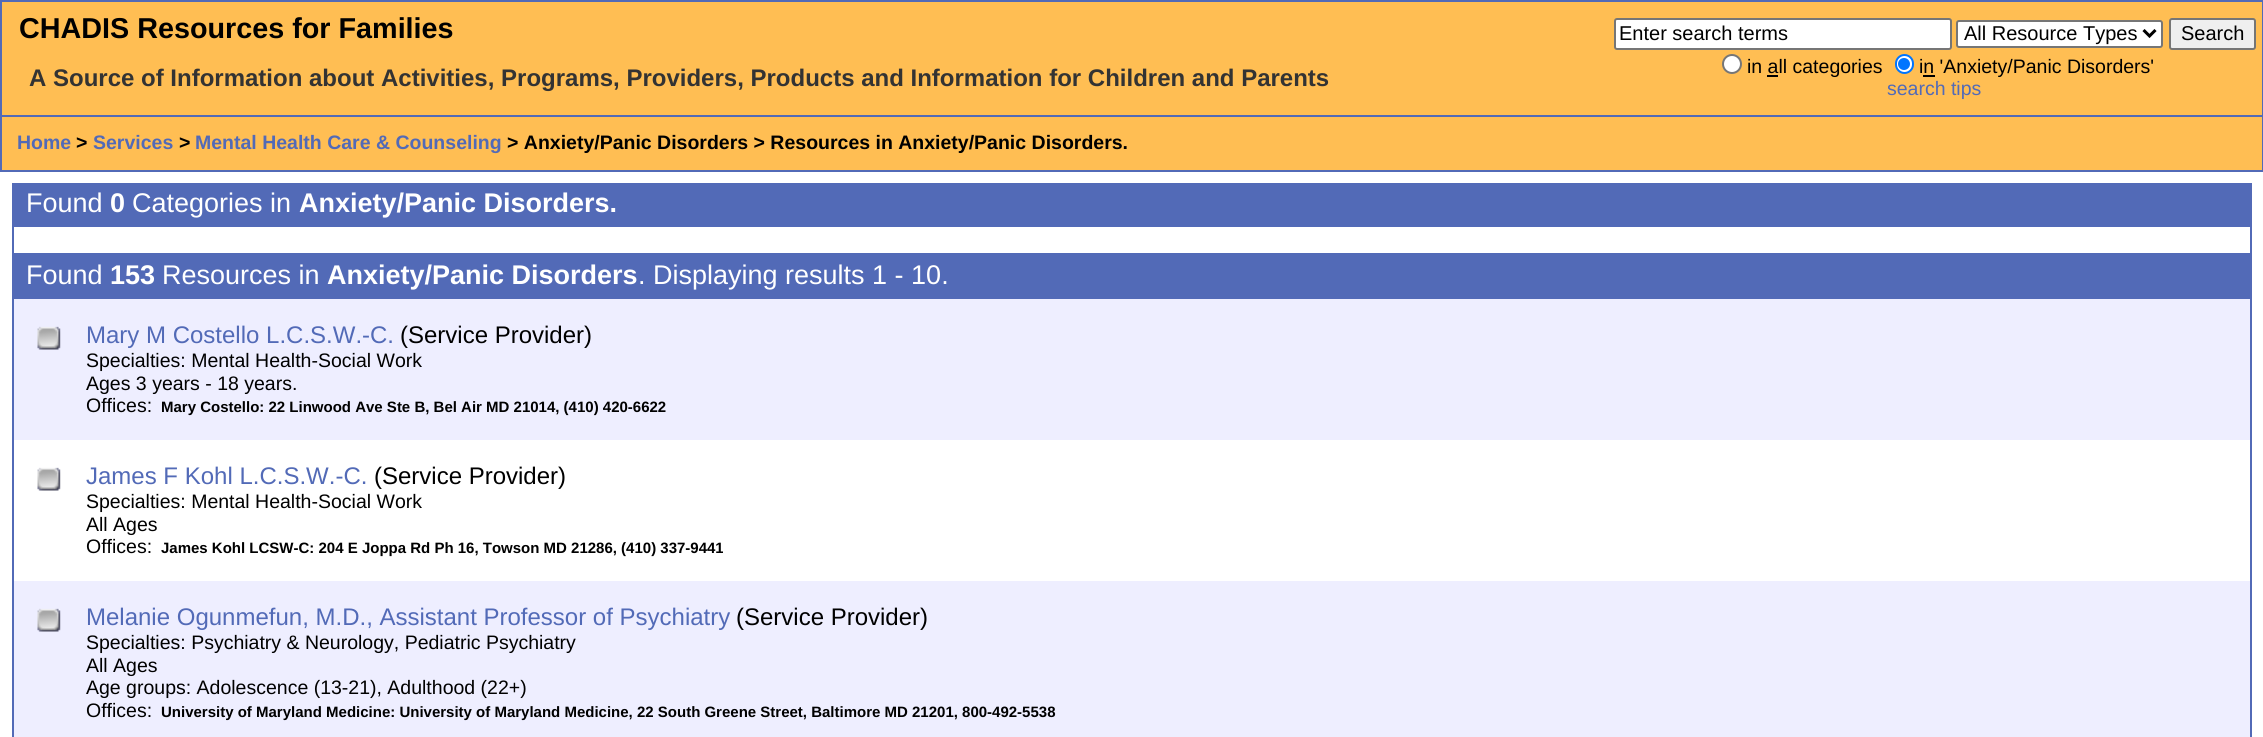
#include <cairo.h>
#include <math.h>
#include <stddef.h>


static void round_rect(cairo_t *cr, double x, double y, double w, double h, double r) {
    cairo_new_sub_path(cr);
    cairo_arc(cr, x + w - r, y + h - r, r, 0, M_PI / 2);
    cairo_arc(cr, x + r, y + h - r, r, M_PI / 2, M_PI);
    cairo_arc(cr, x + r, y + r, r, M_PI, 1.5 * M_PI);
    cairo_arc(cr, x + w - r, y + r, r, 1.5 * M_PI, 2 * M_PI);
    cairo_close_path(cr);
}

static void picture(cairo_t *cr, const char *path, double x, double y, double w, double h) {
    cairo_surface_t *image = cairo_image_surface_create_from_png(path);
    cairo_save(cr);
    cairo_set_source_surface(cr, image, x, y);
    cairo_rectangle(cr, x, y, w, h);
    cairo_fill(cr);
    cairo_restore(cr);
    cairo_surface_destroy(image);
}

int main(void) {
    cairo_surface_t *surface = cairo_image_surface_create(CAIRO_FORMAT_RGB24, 2263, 737);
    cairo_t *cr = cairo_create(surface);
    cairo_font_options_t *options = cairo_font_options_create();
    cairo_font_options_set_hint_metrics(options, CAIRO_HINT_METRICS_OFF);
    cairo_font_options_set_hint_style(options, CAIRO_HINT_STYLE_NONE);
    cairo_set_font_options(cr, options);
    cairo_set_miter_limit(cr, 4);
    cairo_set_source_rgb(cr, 1, 1, 1);
    cairo_paint(cr);
    cairo_set_source_rgb(cr, 1, 0.745, 0.325);
    cairo_rectangle(cr, 1, 1, 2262, 115);
    cairo_fill_preserve(cr);
    cairo_set_source_rgb(cr, 0.322, 0.416, 0.718);
    cairo_stroke(cr);
    cairo_select_font_face(cr, "Liberation Sans", CAIRO_FONT_SLANT_NORMAL, CAIRO_FONT_WEIGHT_BOLD);
    cairo_set_font_size(cr, 28.75);
    cairo_set_source_rgb(cr, 0, 0, 0);
    cairo_move_to(cr, 19, 38);
    cairo_show_text(cr, "CHADIS Resources for Families");
    cairo_set_font_size(cr, 24);
    cairo_set_source_rgb(cr, 0.2, 0.2, 0.2);
    cairo_move_to(cr, 29, 86);
    cairo_show_text(cr, "A Source of Information about Activities, Programs, Providers, Products and Information for Children and Parents");
    cairo_set_source_rgb(cr, 1, 1, 1);
    round_rect(cr, 1615, 19, 336, 30, 2);
    cairo_fill_preserve(cr);
    cairo_set_source_rgb(cr, 0.463, 0.463, 0.463);
    cairo_stroke(cr);
    cairo_select_font_face(cr, "Liberation Sans", CAIRO_FONT_SLANT_NORMAL, CAIRO_FONT_WEIGHT_NORMAL);
    cairo_set_font_size(cr, 20);
    cairo_set_source_rgb(cr, 0, 0, 0);
    cairo_move_to(cr, 1619, 40);
    cairo_show_text(cr, "Enter search terms");
    cairo_set_source_rgb(cr, 1, 1, 1);
    round_rect(cr, 1957, 21, 205, 26, 2);
    cairo_fill_preserve(cr);
    cairo_set_source_rgb(cr, 0.463, 0.463, 0.463);
    cairo_stroke(cr);
    cairo_new_path(cr);
    cairo_move_to(cr, 2143.5, 30);
    cairo_line_to(cr, 2149.5, 36);
    cairo_line_to(cr, 2155.5, 30);
    cairo_set_source_rgb(cr, 0, 0, 0);
    cairo_set_line_width(cr, 3);
    cairo_stroke(cr);
    cairo_move_to(cr, 1964, 40);
    cairo_show_text(cr, "All Resource Types");
    cairo_set_source_rgb(cr, 0.937, 0.937, 0.937);
    round_rect(cr, 2170, 19, 85, 30, 2);
    cairo_fill_preserve(cr);
    cairo_set_source_rgb(cr, 0.463, 0.463, 0.463);
    cairo_set_line_width(cr, 2);
    cairo_stroke(cr);
    cairo_set_source_rgb(cr, 0, 0, 0);
    cairo_move_to(cr, 2181, 40);
    cairo_show_text(cr, "Search");
    cairo_set_source_rgb(cr, 1, 1, 1);
    cairo_new_path(cr);
    cairo_arc(cr, 1732, 64, 9, 0, 2 * M_PI);
    cairo_fill_preserve(cr);
    cairo_set_source_rgb(cr, 0.463, 0.463, 0.463);
    cairo_stroke(cr);
    cairo_set_font_size(cr, 19.5);
    cairo_set_source_rgb(cr, 0, 0, 0);
    cairo_move_to(cr, 1747, 73);
    cairo_show_text(cr, "in all categories");
    cairo_rectangle(cr, 1767, 75, 11, 2);
    cairo_fill(cr);
    cairo_set_source_rgb(cr, 1, 1, 1);
    round_rect(cr, 1896, 55, 17, 18, 8.5);
    cairo_fill_preserve(cr);
    cairo_set_source_rgb(cr, 0, 0.459, 1);
    cairo_stroke(cr);
    cairo_arc(cr, 1904, 64, 6, 0, 2 * M_PI);
    cairo_fill(cr);
    cairo_set_source_rgb(cr, 0, 0, 0);
    cairo_move_to(cr, 1919, 73);
    cairo_show_text(cr, "in 'Anxiety/Panic Disorders'");
    cairo_rectangle(cr, 1923, 75, 12, 2);
    cairo_fill(cr);
    cairo_set_source_rgb(cr, 0.322, 0.416, 0.718);
    cairo_move_to(cr, 1887, 95);
    cairo_show_text(cr, "search tips");
    cairo_set_source_rgb(cr, 1, 0.745, 0.325);
    cairo_rectangle(cr, 2, 117, 2260, 53);
    cairo_fill(cr);
    cairo_set_source_rgb(cr, 0.322, 0.416, 0.718);
    cairo_rectangle(cr, 2262, 117, 1, 54);
    cairo_fill(cr);
    cairo_rectangle(cr, 0, 170, 2263, 2);
    cairo_fill(cr);
    cairo_rectangle(cr, 0, 117, 2, 54);
    cairo_fill(cr);
    cairo_select_font_face(cr, "Liberation Sans", CAIRO_FONT_SLANT_NORMAL, CAIRO_FONT_WEIGHT_BOLD);
    cairo_move_to(cr, 17, 149);
    cairo_show_text(cr, "Home");
    cairo_set_source_rgb(cr, 0, 0, 0);
    cairo_move_to(cr, 76, 149);
    cairo_show_text(cr, ">");
    cairo_set_source_rgb(cr, 0.322, 0.416, 0.718);
    cairo_move_to(cr, 93, 149);
    cairo_show_text(cr, "Services");
    cairo_set_source_rgb(cr, 0, 0, 0);
    cairo_move_to(cr, 179, 149);
    cairo_show_text(cr, ">");
    cairo_set_source_rgb(cr, 0.322, 0.416, 0.718);
    cairo_move_to(cr, 195, 149);
    cairo_show_text(cr, "Mental Health Care & Counseling");
    cairo_set_source_rgb(cr, 0, 0, 0);
    cairo_move_to(cr, 507, 149);
    cairo_show_text(cr, "> Anxiety/Panic Disorders > Resources in Anxiety/Panic Disorders.");
    cairo_set_source_rgb(cr, 0.322, 0.416, 0.718);
    cairo_rectangle(cr, 12, 183, 2240, 42);
    cairo_fill(cr);
    cairo_select_font_face(cr, "Liberation Sans", CAIRO_FONT_SLANT_NORMAL, CAIRO_FONT_WEIGHT_NORMAL);
    cairo_set_font_size(cr, 27);
    cairo_set_source_rgb(cr, 1, 1, 1);
    cairo_move_to(cr, 26, 212);
    cairo_show_text(cr, "Found");
    cairo_select_font_face(cr, "Liberation Sans", CAIRO_FONT_SLANT_NORMAL, CAIRO_FONT_WEIGHT_BOLD);
    cairo_move_to(cr, 110, 212);
    cairo_show_text(cr, "0");
    cairo_select_font_face(cr, "Liberation Sans", CAIRO_FONT_SLANT_NORMAL, CAIRO_FONT_WEIGHT_NORMAL);
    cairo_move_to(cr, 132, 212);
    cairo_show_text(cr, "Categories in");
    cairo_select_font_face(cr, "Liberation Sans", CAIRO_FONT_SLANT_NORMAL, CAIRO_FONT_WEIGHT_BOLD);
    cairo_move_to(cr, 299, 212);
    cairo_show_text(cr, "Anxiety/Panic Disorders.");
    cairo_rectangle(cr, 13, 226, 2238, 28);
    cairo_set_source_rgb(cr, 0.322, 0.416, 0.718);
    cairo_stroke(cr);
    cairo_rectangle(cr, 12, 255, 2240, 42);
    cairo_fill(cr);
    cairo_select_font_face(cr, "Liberation Sans", CAIRO_FONT_SLANT_NORMAL, CAIRO_FONT_WEIGHT_NORMAL);
    cairo_set_source_rgb(cr, 1, 1, 1);
    cairo_move_to(cr, 26, 284);
    cairo_show_text(cr, "Found");
    cairo_select_font_face(cr, "Liberation Sans", CAIRO_FONT_SLANT_NORMAL, CAIRO_FONT_WEIGHT_BOLD);
    cairo_move_to(cr, 110, 284);
    cairo_show_text(cr, "153");
    cairo_select_font_face(cr, "Liberation Sans", CAIRO_FONT_SLANT_NORMAL, CAIRO_FONT_WEIGHT_NORMAL);
    cairo_move_to(cr, 162, 284);
    cairo_show_text(cr, "Resources in");
    cairo_select_font_face(cr, "Liberation Sans", CAIRO_FONT_SLANT_NORMAL, CAIRO_FONT_WEIGHT_BOLD);
    cairo_move_to(cr, 327, 284);
    cairo_show_text(cr, "Anxiety/Panic Disorders");
    cairo_select_font_face(cr, "Liberation Sans", CAIRO_FONT_SLANT_NORMAL, CAIRO_FONT_WEIGHT_NORMAL);
    cairo_move_to(cr, 638, 284);
    cairo_show_text(cr, ". Displaying results 1 - 10.");
    cairo_rectangle(cr, 13, 298, 2238, 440);
    cairo_set_source_rgb(cr, 0.322, 0.416, 0.718);
    cairo_stroke(cr);
    cairo_set_source_rgb(cr, 0.933, 0.933, 1);
    cairo_rectangle(cr, 14, 299, 2236, 141);
    cairo_fill(cr);
    picture(cr, "img1.png", 37, 326, 24, 24);
    cairo_set_font_size(cr, 24);
    cairo_set_source_rgb(cr, 0.322, 0.416, 0.718);
    cairo_move_to(cr, 86, 343);
    cairo_show_text(cr, "Mary M Costello L.C.S.W.-C.");
    cairo_set_source_rgb(cr, 0, 0, 0);
    cairo_move_to(cr, 400, 343);
    cairo_show_text(cr, "(Service Provider)");
    cairo_set_font_size(cr, 19.5);
    cairo_move_to(cr, 86, 367);
    cairo_show_text(cr, "Specialties: Mental Health-Social Work");
    cairo_move_to(cr, 86, 390);
    cairo_show_text(cr, "Ages 3 years - 18 years.");
    cairo_move_to(cr, 86, 412);
    cairo_show_text(cr, "Offices:");
    cairo_select_font_face(cr, "Liberation Sans", CAIRO_FONT_SLANT_NORMAL, CAIRO_FONT_WEIGHT_BOLD);
    cairo_set_font_size(cr, 15);
    cairo_move_to(cr, 161, 412);
    cairo_show_text(cr, "Mary Costello: 22 Linwood Ave Ste B, Bel Air MD 21014, (410) 420-6622");
    picture(cr, "img2.png", 37, 467, 24, 24);
    cairo_select_font_face(cr, "Liberation Sans", CAIRO_FONT_SLANT_NORMAL, CAIRO_FONT_WEIGHT_NORMAL);
    cairo_set_font_size(cr, 24);
    cairo_set_source_rgb(cr, 0.322, 0.416, 0.718);
    cairo_move_to(cr, 86, 484);
    cairo_show_text(cr, "James F Kohl L.C.S.W.-C.");
    cairo_set_source_rgb(cr, 0, 0, 0);
    cairo_move_to(cr, 374, 484);
    cairo_show_text(cr, "(Service Provider)");
    cairo_set_font_size(cr, 19.5);
    cairo_move_to(cr, 86, 508);
    cairo_show_text(cr, "Specialties: Mental Health-Social Work");
    cairo_move_to(cr, 86, 531);
    cairo_show_text(cr, "All Ages");
    cairo_move_to(cr, 86, 553);
    cairo_show_text(cr, "Offices:");
    cairo_select_font_face(cr, "Liberation Sans", CAIRO_FONT_SLANT_NORMAL, CAIRO_FONT_WEIGHT_BOLD);
    cairo_set_font_size(cr, 15);
    cairo_move_to(cr, 161, 553);
    cairo_show_text(cr, "James Kohl LCSW-C: 204 E Joppa Rd Ph 16, Towson MD 21286, (410) 337-9441");
    cairo_set_source_rgb(cr, 0.933, 0.933, 1);
    cairo_rectangle(cr, 14, 581, 2236, 156);
    cairo_fill(cr);
    picture(cr, "img1.png", 37, 608, 24, 24);
    cairo_select_font_face(cr, "Liberation Sans", CAIRO_FONT_SLANT_NORMAL, CAIRO_FONT_WEIGHT_NORMAL);
    cairo_set_font_size(cr, 24);
    cairo_set_source_rgb(cr, 0.322, 0.416, 0.718);
    cairo_move_to(cr, 86, 625);
    cairo_show_text(cr, "Melanie Ogunmefun, M.D., Assistant Professor of Psychiatry");
    cairo_set_source_rgb(cr, 0, 0, 0);
    cairo_move_to(cr, 736, 625);
    cairo_show_text(cr, "(Service Provider)");
    cairo_set_font_size(cr, 19.5);
    cairo_move_to(cr, 86, 649);
    cairo_show_text(cr, "Specialties: Psychiatry & Neurology, Pediatric Psychiatry");
    cairo_move_to(cr, 86, 672);
    cairo_show_text(cr, "All Ages");
    cairo_move_to(cr, 86, 694);
    cairo_show_text(cr, "Age groups: Adolescence (13-21), Adulthood (22+)");
    cairo_move_to(cr, 86, 717);
    cairo_show_text(cr, "Offices:");
    cairo_select_font_face(cr, "Liberation Sans", CAIRO_FONT_SLANT_NORMAL, CAIRO_FONT_WEIGHT_BOLD);
    cairo_set_font_size(cr, 15);
    cairo_move_to(cr, 161, 717);
    cairo_show_text(cr, "University of Maryland Medicine: University of Maryland Medicine, 22 South Greene Street, Baltimore MD 21201, 800-492-5538");
    cairo_surface_write_to_png(surface, "page.png");
    cairo_font_options_destroy(options);
    cairo_destroy(cr);
    cairo_surface_destroy(surface);
    return 0;
}
